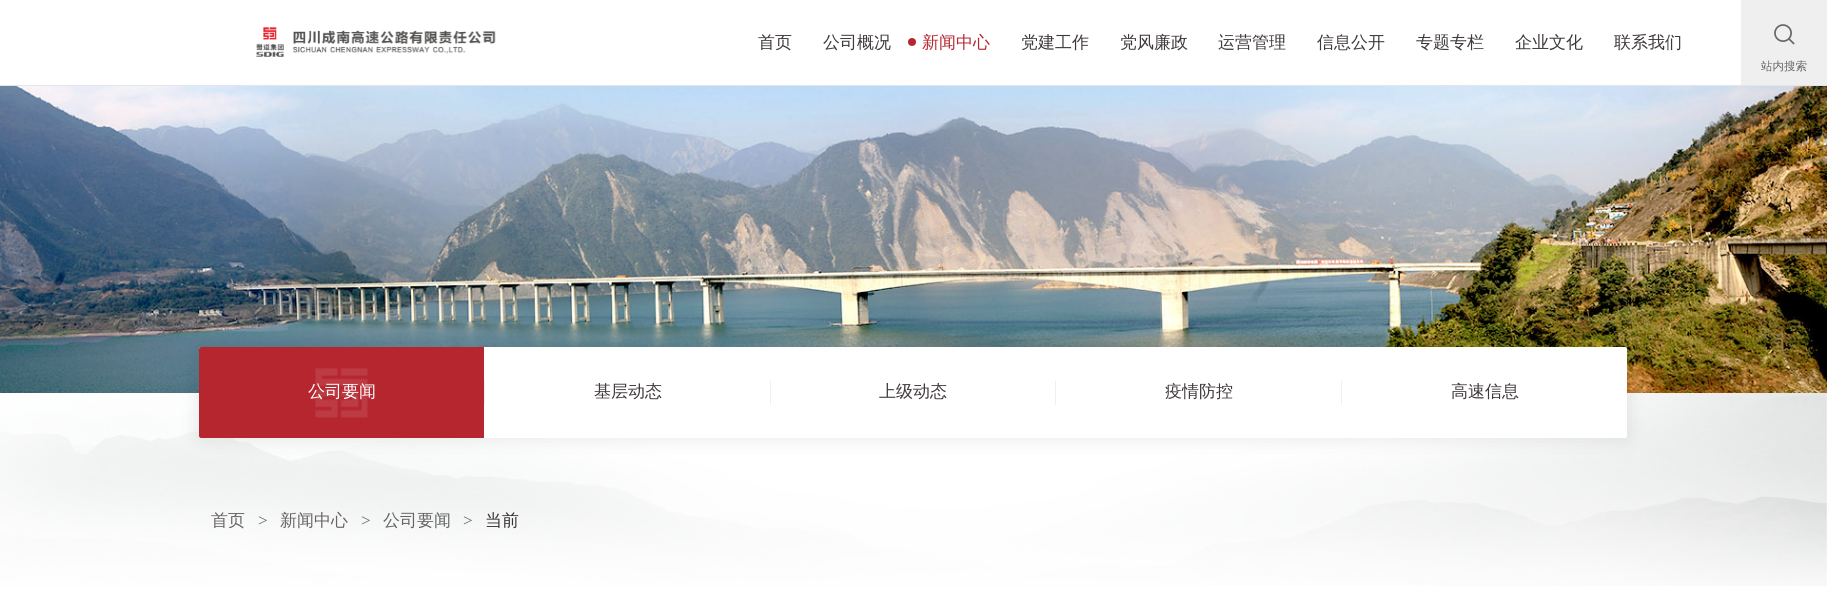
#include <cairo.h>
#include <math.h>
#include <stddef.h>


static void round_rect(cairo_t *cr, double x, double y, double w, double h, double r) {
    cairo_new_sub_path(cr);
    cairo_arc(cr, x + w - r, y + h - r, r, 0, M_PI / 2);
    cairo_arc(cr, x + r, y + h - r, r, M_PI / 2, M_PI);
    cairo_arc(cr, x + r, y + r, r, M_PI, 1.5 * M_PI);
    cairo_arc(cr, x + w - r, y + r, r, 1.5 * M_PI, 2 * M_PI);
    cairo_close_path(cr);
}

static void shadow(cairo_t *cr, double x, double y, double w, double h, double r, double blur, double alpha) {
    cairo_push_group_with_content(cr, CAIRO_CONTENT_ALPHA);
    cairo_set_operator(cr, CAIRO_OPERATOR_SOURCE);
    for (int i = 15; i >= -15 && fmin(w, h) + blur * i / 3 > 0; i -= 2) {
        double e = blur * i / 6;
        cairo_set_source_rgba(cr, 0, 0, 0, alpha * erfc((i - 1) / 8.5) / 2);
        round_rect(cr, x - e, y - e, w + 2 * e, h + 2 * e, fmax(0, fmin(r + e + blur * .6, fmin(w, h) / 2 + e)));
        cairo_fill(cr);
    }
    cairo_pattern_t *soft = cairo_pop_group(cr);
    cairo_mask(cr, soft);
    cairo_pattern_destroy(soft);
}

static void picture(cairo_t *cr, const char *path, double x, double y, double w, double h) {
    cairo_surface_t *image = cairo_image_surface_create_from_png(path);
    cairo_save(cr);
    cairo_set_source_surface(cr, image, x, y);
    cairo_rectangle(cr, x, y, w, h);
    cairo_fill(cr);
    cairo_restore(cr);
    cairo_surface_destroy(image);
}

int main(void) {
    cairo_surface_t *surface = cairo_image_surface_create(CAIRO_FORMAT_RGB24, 1827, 593);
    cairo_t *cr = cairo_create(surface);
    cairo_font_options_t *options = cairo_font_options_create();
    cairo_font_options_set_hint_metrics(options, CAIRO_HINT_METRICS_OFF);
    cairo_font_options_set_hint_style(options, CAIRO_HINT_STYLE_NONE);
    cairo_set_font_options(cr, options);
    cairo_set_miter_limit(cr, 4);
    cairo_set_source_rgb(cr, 1, 1, 1);
    cairo_paint(cr);
    picture(cr, "img1.png", 0, 393, 1827, 193);
    cairo_set_source_rgb(cr, 0.89, 0.898, 0.914);
    cairo_rectangle(cr, 0, 85, 1827, 1);
    cairo_fill(cr);
    picture(cr, "img2.png", 256, 27, 240, 30);
    cairo_select_font_face(cr, "WenQuanYi Zen Hei Medium", CAIRO_FONT_SLANT_NORMAL, CAIRO_FONT_WEIGHT_NORMAL);
    cairo_set_font_size(cr, 17);
    cairo_set_source_rgb(cr, 0.243, 0.227, 0.224);
    cairo_move_to(cr, 758, 48);
    cairo_show_text(cr, "首页");
    cairo_move_to(cr, 823, 48);
    cairo_show_text(cr, "公司概况");
    cairo_set_source_rgb(cr, 0.714, 0.149, 0.184);
    cairo_new_path(cr);
    cairo_arc(cr, 912, 42, 4, 0, 2 * M_PI);
    cairo_fill(cr);
    cairo_move_to(cr, 922, 48);
    cairo_show_text(cr, "新闻中心");
    cairo_set_source_rgb(cr, 0.243, 0.227, 0.224);
    cairo_move_to(cr, 1021, 48);
    cairo_show_text(cr, "党建工作");
    cairo_move_to(cr, 1120, 48);
    cairo_show_text(cr, "党风廉政");
    cairo_move_to(cr, 1218, 48);
    cairo_show_text(cr, "运营管理");
    cairo_move_to(cr, 1317, 48);
    cairo_show_text(cr, "信息公开");
    cairo_move_to(cr, 1416, 48);
    cairo_show_text(cr, "专题专栏");
    cairo_move_to(cr, 1515, 48);
    cairo_show_text(cr, "企业文化");
    cairo_move_to(cr, 1614, 48);
    cairo_show_text(cr, "联系我们");
    cairo_set_source_rgb(cr, 0.937, 0.937, 0.937);
    cairo_rectangle(cr, 1741, 0, 86, 85);
    cairo_fill(cr);
    picture(cr, "img3.png", 1774, 24, 21, 21);
    cairo_set_font_size(cr, 11.5);
    cairo_set_source_rgb(cr, 0.396, 0.396, 0.396);
    cairo_move_to(cr, 1761, 70);
    cairo_show_text(cr, "站内搜索");
    picture(cr, "img4.png", 0, 86, 1827, 307);
    cairo_set_source_rgb(cr, 0, 0, 0);
    shadow(cr, 199, 347, 1428, 91, 2, 9.5, 0.1);
    cairo_set_source_rgb(cr, 1, 1, 1);
    round_rect(cr, 199, 347, 1428, 91, 2);
    cairo_fill(cr);
    cairo_set_source_rgb(cr, 0.714, 0.149, 0.184);
    cairo_new_path(cr);
    cairo_move_to(cr, 201, 347);
    cairo_line_to(cr, 484, 347);
    cairo_line_to(cr, 484, 438);
    cairo_line_to(cr, 201, 438);
    cairo_curve_to(cr, 200, 438, 199, 437, 199, 436);
    cairo_line_to(cr, 199, 349);
    cairo_curve_to(cr, 199, 348, 200, 347, 201, 347);
    cairo_close_path(cr);
    cairo_fill(cr);
    picture(cr, "img5.png", 315, 368, 53, 50);
    cairo_set_font_size(cr, 17);
    cairo_set_source_rgb(cr, 1, 1, 1);
    cairo_move_to(cr, 308, 397);
    cairo_show_text(cr, "公司要闻");
    cairo_set_source_rgb(cr, 0.941, 0.941, 0.941);
    cairo_rectangle(cr, 484, 381, 1, 24);
    cairo_fill(cr);
    cairo_set_source_rgb(cr, 0.243, 0.227, 0.224);
    cairo_move_to(cr, 594, 397);
    cairo_show_text(cr, "基层动态");
    cairo_set_source_rgb(cr, 0.941, 0.941, 0.941);
    cairo_rectangle(cr, 770, 381, 1, 24);
    cairo_fill(cr);
    cairo_set_source_rgb(cr, 0.243, 0.227, 0.224);
    cairo_move_to(cr, 879, 397);
    cairo_show_text(cr, "上级动态");
    cairo_set_source_rgb(cr, 0.941, 0.941, 0.941);
    cairo_rectangle(cr, 1055, 381, 1, 24);
    cairo_fill(cr);
    cairo_set_source_rgb(cr, 0.243, 0.227, 0.224);
    cairo_move_to(cr, 1165, 397);
    cairo_show_text(cr, "疫情防控");
    cairo_set_source_rgb(cr, 0.941, 0.941, 0.941);
    cairo_rectangle(cr, 1341, 381, 1, 24);
    cairo_fill(cr);
    cairo_set_source_rgb(cr, 0.243, 0.227, 0.224);
    cairo_move_to(cr, 1451, 397);
    cairo_show_text(cr, "高速信息");
    cairo_set_source_rgb(cr, 0.396, 0.396, 0.396);
    cairo_move_to(cr, 211, 526);
    cairo_show_text(cr, "首页");
    cairo_select_font_face(cr, "Liberation Serif", CAIRO_FONT_SLANT_NORMAL, CAIRO_FONT_WEIGHT_NORMAL);
    cairo_move_to(cr, 258, 526);
    cairo_show_text(cr, ">");
    cairo_select_font_face(cr, "WenQuanYi Zen Hei Medium", CAIRO_FONT_SLANT_NORMAL, CAIRO_FONT_WEIGHT_NORMAL);
    cairo_move_to(cr, 280, 526);
    cairo_show_text(cr, "新闻中心");
    cairo_select_font_face(cr, "Liberation Serif", CAIRO_FONT_SLANT_NORMAL, CAIRO_FONT_WEIGHT_NORMAL);
    cairo_move_to(cr, 361, 526);
    cairo_show_text(cr, ">");
    cairo_select_font_face(cr, "WenQuanYi Zen Hei Medium", CAIRO_FONT_SLANT_NORMAL, CAIRO_FONT_WEIGHT_NORMAL);
    cairo_move_to(cr, 383, 526);
    cairo_show_text(cr, "公司要闻");
    cairo_select_font_face(cr, "Liberation Serif", CAIRO_FONT_SLANT_NORMAL, CAIRO_FONT_WEIGHT_NORMAL);
    cairo_move_to(cr, 463, 526);
    cairo_show_text(cr, ">");
    cairo_select_font_face(cr, "WenQuanYi Zen Hei Medium", CAIRO_FONT_SLANT_NORMAL, CAIRO_FONT_WEIGHT_NORMAL);
    cairo_set_source_rgb(cr, 0.2, 0.2, 0.2);
    cairo_move_to(cr, 485, 526);
    cairo_show_text(cr, "当前");
    cairo_surface_write_to_png(surface, "page.png");
    cairo_font_options_destroy(options);
    cairo_destroy(cr);
    cairo_surface_destroy(surface);
    return 0;
}
